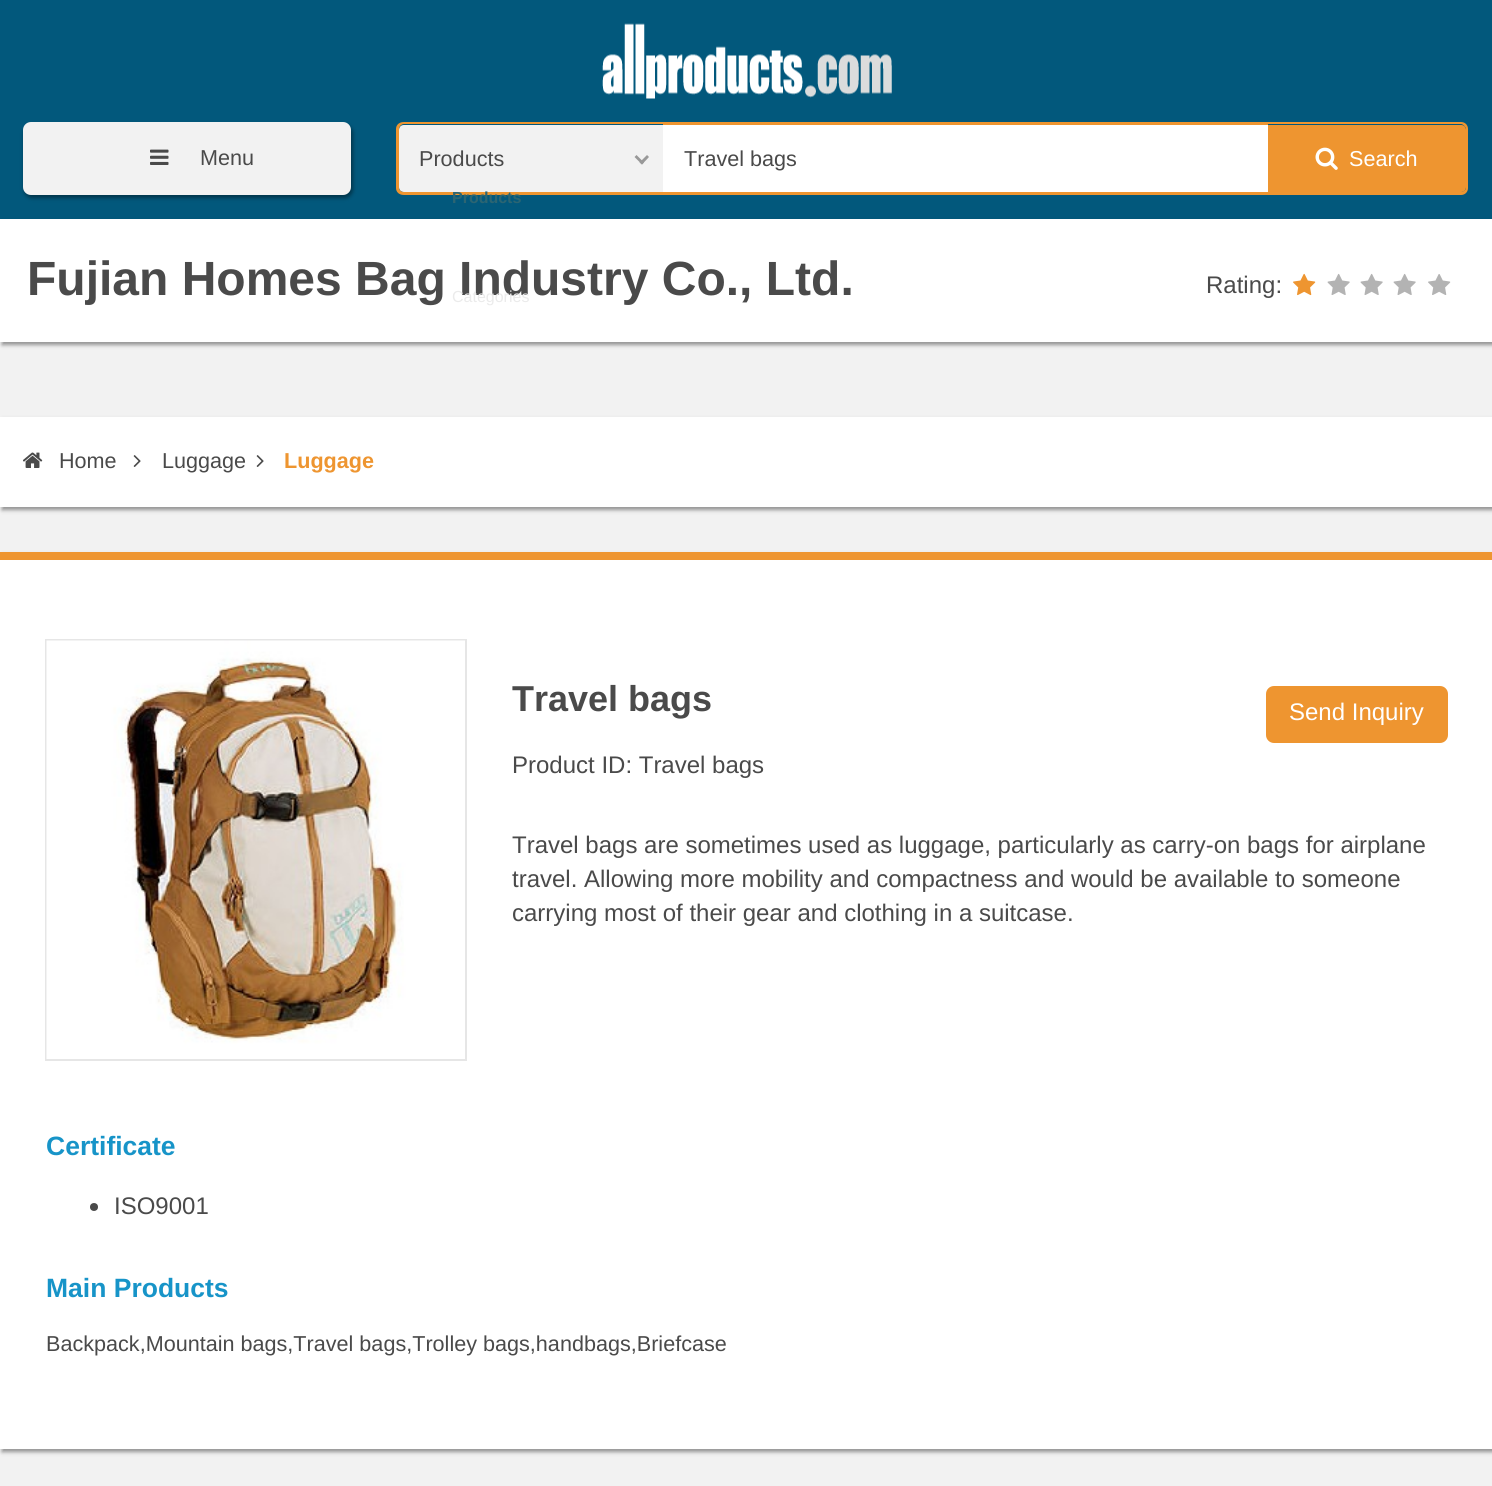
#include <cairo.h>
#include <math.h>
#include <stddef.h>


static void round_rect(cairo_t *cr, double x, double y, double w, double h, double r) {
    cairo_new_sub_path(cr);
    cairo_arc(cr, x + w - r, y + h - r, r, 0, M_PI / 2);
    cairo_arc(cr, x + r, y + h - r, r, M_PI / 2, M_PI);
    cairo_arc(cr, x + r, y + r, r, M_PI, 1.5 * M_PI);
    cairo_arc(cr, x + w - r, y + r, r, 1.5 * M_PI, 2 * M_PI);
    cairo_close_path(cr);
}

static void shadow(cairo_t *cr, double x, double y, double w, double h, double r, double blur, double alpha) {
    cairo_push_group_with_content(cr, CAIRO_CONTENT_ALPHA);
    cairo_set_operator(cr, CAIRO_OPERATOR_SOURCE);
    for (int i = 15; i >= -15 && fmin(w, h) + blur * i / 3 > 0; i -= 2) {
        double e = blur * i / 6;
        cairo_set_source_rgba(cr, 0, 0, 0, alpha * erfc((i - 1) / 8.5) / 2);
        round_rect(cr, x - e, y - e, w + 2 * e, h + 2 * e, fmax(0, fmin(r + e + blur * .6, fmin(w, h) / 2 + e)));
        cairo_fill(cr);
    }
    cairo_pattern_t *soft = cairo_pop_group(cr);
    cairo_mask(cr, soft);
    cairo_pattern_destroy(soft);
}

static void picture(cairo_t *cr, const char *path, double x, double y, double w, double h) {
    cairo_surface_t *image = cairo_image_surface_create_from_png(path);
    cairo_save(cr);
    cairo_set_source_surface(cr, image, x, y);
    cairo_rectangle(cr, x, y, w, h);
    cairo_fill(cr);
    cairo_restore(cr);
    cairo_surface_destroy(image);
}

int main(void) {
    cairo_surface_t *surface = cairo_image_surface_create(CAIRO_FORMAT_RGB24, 1492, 1486);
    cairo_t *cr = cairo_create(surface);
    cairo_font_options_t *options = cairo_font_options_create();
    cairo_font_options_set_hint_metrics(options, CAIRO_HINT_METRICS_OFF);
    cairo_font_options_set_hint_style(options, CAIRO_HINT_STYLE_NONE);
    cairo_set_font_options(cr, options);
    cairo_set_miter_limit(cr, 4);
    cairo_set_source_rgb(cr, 0.949, 0.949, 0.949);
    cairo_paint(cr);
    cairo_set_source_rgb(cr, 0.008, 0.345, 0.486);
    cairo_rectangle(cr, 0, 0, 1492, 219);
    cairo_fill(cr);
    picture(cr, "img1.png", 602, 23, 290, 76);
    cairo_set_source_rgb(cr, 0, 0, 0);
    shadow(cr, 24, 125, 329, 73, 8, 2, 0.4);
    cairo_set_source_rgb(cr, 0.949, 0.949, 0.949);
    round_rect(cr, 24.5, 123.5, 325, 70, 6.5);
    cairo_fill_preserve(cr);
    cairo_set_line_width(cr, 3);
    cairo_stroke(cr);
    picture(cr, "img2.png", 150, 149, 19, 16);
    cairo_select_font_face(cr, "Liberation Sans", CAIRO_FONT_SLANT_NORMAL, CAIRO_FONT_WEIGHT_NORMAL);
    cairo_set_font_size(cr, 21.6);
    cairo_set_source_rgb(cr, 0.29, 0.29, 0.29);
    cairo_move_to(cr, 200, 165);
    cairo_show_text(cr, "Menu");
    cairo_set_source_rgb(cr, 0.949, 0.949, 0.949);
    cairo_new_path(cr);
    cairo_move_to(cr, 404, 125);
    cairo_line_to(cr, 663, 125);
    cairo_line_to(cr, 663, 192);
    cairo_line_to(cr, 404, 192);
    cairo_curve_to(cr, 401, 192, 399, 190, 399, 187);
    cairo_line_to(cr, 399, 130);
    cairo_curve_to(cr, 399, 127, 401, 125, 404, 125);
    cairo_close_path(cr);
    cairo_fill(cr);
    cairo_set_source_rgb(cr, 0.933, 0.584, 0.188);
    cairo_set_fill_rule(cr, CAIRO_FILL_RULE_EVEN_ODD);
    cairo_new_path(cr);
    cairo_move_to(cr, 404, 122);
    cairo_line_to(cr, 663, 122);
    cairo_line_to(cr, 663, 195);
    cairo_line_to(cr, 404, 195);
    cairo_curve_to(cr, 399, 195, 396, 192, 396, 188);
    cairo_line_to(cr, 396, 129);
    cairo_curve_to(cr, 396, 125, 399, 122, 404, 122);
    cairo_close_path(cr);
    cairo_move_to(cr, 404, 124);
    cairo_line_to(cr, 663, 124);
    cairo_line_to(cr, 663, 192);
    cairo_line_to(cr, 404, 192);
    cairo_curve_to(cr, 401, 192, 399, 190, 399, 188);
    cairo_line_to(cr, 399, 129);
    cairo_curve_to(cr, 399, 127, 401, 124, 404, 124);
    cairo_close_path(cr);
    cairo_fill(cr);
    cairo_set_source_rgb(cr, 0.29, 0.29, 0.29);
    cairo_move_to(cr, 419, 166);
    cairo_show_text(cr, "Products");
    cairo_set_source_rgb(cr, 0.6, 0.6, 0.6);
    cairo_set_fill_rule(cr, CAIRO_FILL_RULE_WINDING);
    cairo_new_path(cr);
    cairo_move_to(cr, 647, 155);
    cairo_line_to(cr, 649, 157);
    cairo_line_to(cr, 642, 164.5);
    cairo_line_to(cr, 639.5, 162.5);
    cairo_close_path(cr);
    cairo_fill(cr);
    cairo_new_path(cr);
    cairo_move_to(cr, 636.5, 155);
    cairo_line_to(cr, 644, 162.5);
    cairo_line_to(cr, 642, 164.5);
    cairo_line_to(cr, 634.5, 157);
    cairo_close_path(cr);
    cairo_fill(cr);
    cairo_select_font_face(cr, "Liberation Sans", CAIRO_FONT_SLANT_NORMAL, CAIRO_FONT_WEIGHT_BOLD);
    cairo_set_font_size(cr, 16);
    cairo_set_source_rgb(cr, 0.173, 0.396, 0.447);
    cairo_move_to(cr, 452, 203);
    cairo_show_text(cr, "Products");
    cairo_set_source_rgb(cr, 0, 0, 0);
    shadow(cr, 2, 222, 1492, 123, 0, 2, 0.4);
    cairo_set_source_rgb(cr, 1, 1, 1);
    cairo_rectangle(cr, 0, 219, 1492, 123);
    cairo_fill(cr);
    cairo_set_font_size(cr, 48);
    cairo_set_source_rgb(cr, 0.29, 0.29, 0.29);
    cairo_move_to(cr, 27, 295);
    cairo_show_text(cr, "Fujian Homes Bag Industry Co., Ltd.");
    cairo_select_font_face(cr, "Liberation Sans", CAIRO_FONT_SLANT_NORMAL, CAIRO_FONT_WEIGHT_NORMAL);
    cairo_set_font_size(cr, 16);
    cairo_set_source_rgb(cr, 0.918, 0.918, 0.918);
    cairo_move_to(cr, 452, 302);
    cairo_show_text(cr, "Categories");
    cairo_set_source_rgb(cr, 1, 1, 1);
    cairo_rectangle(cr, 663, 125, 605, 67);
    cairo_fill(cr);
    cairo_set_source_rgb(cr, 0.933, 0.584, 0.188);
    cairo_rectangle(cr, 663, 122, 605, 3);
    cairo_fill(cr);
    cairo_rectangle(cr, 663, 192, 605, 3);
    cairo_fill(cr);
    cairo_set_font_size(cr, 21.6);
    cairo_set_source_rgb(cr, 0.29, 0.29, 0.29);
    cairo_move_to(cr, 684, 166);
    cairo_show_text(cr, "Travel bags");
    cairo_set_source_rgb(cr, 0.933, 0.584, 0.188);
    cairo_new_path(cr);
    cairo_move_to(cr, 1268, 125);
    cairo_line_to(cr, 1461, 125);
    cairo_curve_to(cr, 1464, 125, 1466, 127, 1466, 130);
    cairo_line_to(cr, 1466, 187);
    cairo_curve_to(cr, 1466, 190, 1464, 192, 1461, 192);
    cairo_line_to(cr, 1268, 192);
    cairo_close_path(cr);
    cairo_fill(cr);
    cairo_set_fill_rule(cr, CAIRO_FILL_RULE_EVEN_ODD);
    cairo_new_path(cr);
    cairo_move_to(cr, 1268, 122);
    cairo_line_to(cr, 1461, 122);
    cairo_curve_to(cr, 1465, 122, 1468, 125, 1468, 129);
    cairo_line_to(cr, 1468, 188);
    cairo_curve_to(cr, 1468, 192, 1465, 195, 1461, 195);
    cairo_line_to(cr, 1268, 195);
    cairo_close_path(cr);
    cairo_move_to(cr, 1268, 124);
    cairo_line_to(cr, 1461, 124);
    cairo_curve_to(cr, 1463, 124, 1466, 127, 1466, 129);
    cairo_line_to(cr, 1466, 188);
    cairo_curve_to(cr, 1466, 190, 1463, 192, 1461, 192);
    cairo_line_to(cr, 1268, 192);
    cairo_close_path(cr);
    cairo_fill(cr);
    picture(cr, "img3.png", 1315, 147, 23, 23);
    cairo_set_source_rgb(cr, 1, 1, 1);
    cairo_move_to(cr, 1349, 166);
    cairo_show_text(cr, "Search");
    cairo_set_font_size(cr, 24);
    cairo_set_source_rgb(cr, 0.29, 0.29, 0.29);
    cairo_move_to(cr, 1206, 293);
    cairo_show_text(cr, "Rating:");
    picture(cr, "img4.png", 1293, 273, 23, 23);
    picture(cr, "img5.png", 1327, 273, 23, 22);
    picture(cr, "img5.png", 1360, 273, 23, 22);
    picture(cr, "img5.png", 1393, 273, 23, 22);
    picture(cr, "img6.png", 1428, 274, 23, 21);
    cairo_set_source_rgb(cr, 0, 0, 0);
    shadow(cr, 2, 420, 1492, 90, 0, 2, 0.4);
    cairo_set_source_rgb(cr, 1, 1, 1);
    cairo_rectangle(cr, 0, 417, 1492, 90);
    cairo_fill(cr);
    picture(cr, "img7.png", 23, 452, 20, 16);
    cairo_set_font_size(cr, 21.6);
    cairo_set_source_rgb(cr, 0.29, 0.29, 0.29);
    cairo_move_to(cr, 59, 468);
    cairo_show_text(cr, "Home");
    picture(cr, "img8.png", 133, 455, 8, 12);
    cairo_move_to(cr, 162, 468);
    cairo_show_text(cr, "Luggage");
    picture(cr, "img8.png", 256, 455, 8, 12);
    cairo_select_font_face(cr, "Liberation Sans", CAIRO_FONT_SLANT_NORMAL, CAIRO_FONT_WEIGHT_BOLD);
    cairo_set_source_rgb(cr, 0.933, 0.584, 0.188);
    cairo_move_to(cr, 284, 468);
    cairo_show_text(cr, "Luggage");
    cairo_set_source_rgb(cr, 0, 0, 0);
    shadow(cr, 2, 555, 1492, 897, 0, 2, 0.4);
    cairo_set_source_rgb(cr, 1, 1, 1);
    cairo_rectangle(cr, 0, 560, 1492, 889);
    cairo_fill(cr);
    cairo_set_source_rgb(cr, 0.933, 0.584, 0.188);
    cairo_rectangle(cr, 0, 552, 1492, 8);
    cairo_fill(cr);
    cairo_rectangle(cr, 46, 640, 420, 420);
    cairo_set_source_rgb(cr, 0.902, 0.902, 0.902);
    cairo_set_line_width(cr, 2);
    cairo_stroke(cr);
    picture(cr, "img9.png", 46, 640, 419, 419);
    cairo_set_font_size(cr, 36);
    cairo_set_source_rgb(cr, 0.29, 0.29, 0.29);
    cairo_move_to(cr, 512, 711);
    cairo_show_text(cr, "Travel bags");
    cairo_set_source_rgb(cr, 0.933, 0.584, 0.188);
    round_rect(cr, 1266, 686, 182, 57, 8);
    cairo_fill(cr);
    cairo_select_font_face(cr, "Liberation Sans", CAIRO_FONT_SLANT_NORMAL, CAIRO_FONT_WEIGHT_NORMAL);
    cairo_set_font_size(cr, 24);
    cairo_set_source_rgb(cr, 1, 1, 1);
    cairo_move_to(cr, 1289, 720);
    cairo_show_text(cr, "Send Inquiry");
    cairo_set_source_rgb(cr, 0.29, 0.29, 0.29);
    cairo_move_to(cr, 512, 773);
    cairo_show_text(cr, "Product ID: Travel bags");
    cairo_move_to(cr, 512, 853);
    cairo_show_text(cr, "Travel bags are sometimes used as luggage, particularly as carry-on bags for airplane");
    cairo_move_to(cr, 512, 887);
    cairo_show_text(cr, "travel. Allowing more mobility and compactness and would be available to someone");
    cairo_move_to(cr, 512, 921);
    cairo_show_text(cr, "carrying most of their gear and clothing in a suitcase.");
    cairo_select_font_face(cr, "Liberation Sans", CAIRO_FONT_SLANT_NORMAL, CAIRO_FONT_WEIGHT_BOLD);
    cairo_set_font_size(cr, 26.5);
    cairo_set_source_rgb(cr, 0.09, 0.58, 0.784);
    cairo_move_to(cr, 46, 1155);
    cairo_show_text(cr, "Certificate");
    cairo_set_source_rgb(cr, 0.29, 0.29, 0.29);
    cairo_new_path(cr);
    cairo_arc(cr, 94, 1207, 4, 0, 2 * M_PI);
    cairo_fill(cr);
    cairo_select_font_face(cr, "Liberation Sans", CAIRO_FONT_SLANT_NORMAL, CAIRO_FONT_WEIGHT_NORMAL);
    cairo_set_font_size(cr, 24);
    cairo_move_to(cr, 114, 1214);
    cairo_show_text(cr, "ISO9001");
    cairo_select_font_face(cr, "Liberation Sans", CAIRO_FONT_SLANT_NORMAL, CAIRO_FONT_WEIGHT_BOLD);
    cairo_set_font_size(cr, 26.5);
    cairo_set_source_rgb(cr, 0.09, 0.58, 0.784);
    cairo_move_to(cr, 46, 1297);
    cairo_show_text(cr, "Main Products");
    cairo_select_font_face(cr, "Liberation Sans", CAIRO_FONT_SLANT_NORMAL, CAIRO_FONT_WEIGHT_NORMAL);
    cairo_set_font_size(cr, 21.6);
    cairo_set_source_rgb(cr, 0.29, 0.29, 0.29);
    cairo_move_to(cr, 46, 1351);
    cairo_show_text(cr, "Backpack,Mountain bags,Travel bags,Trolley bags,handbags,Briefcase");
    cairo_surface_write_to_png(surface, "page.png");
    cairo_font_options_destroy(options);
    cairo_destroy(cr);
    cairo_surface_destroy(surface);
    return 0;
}
